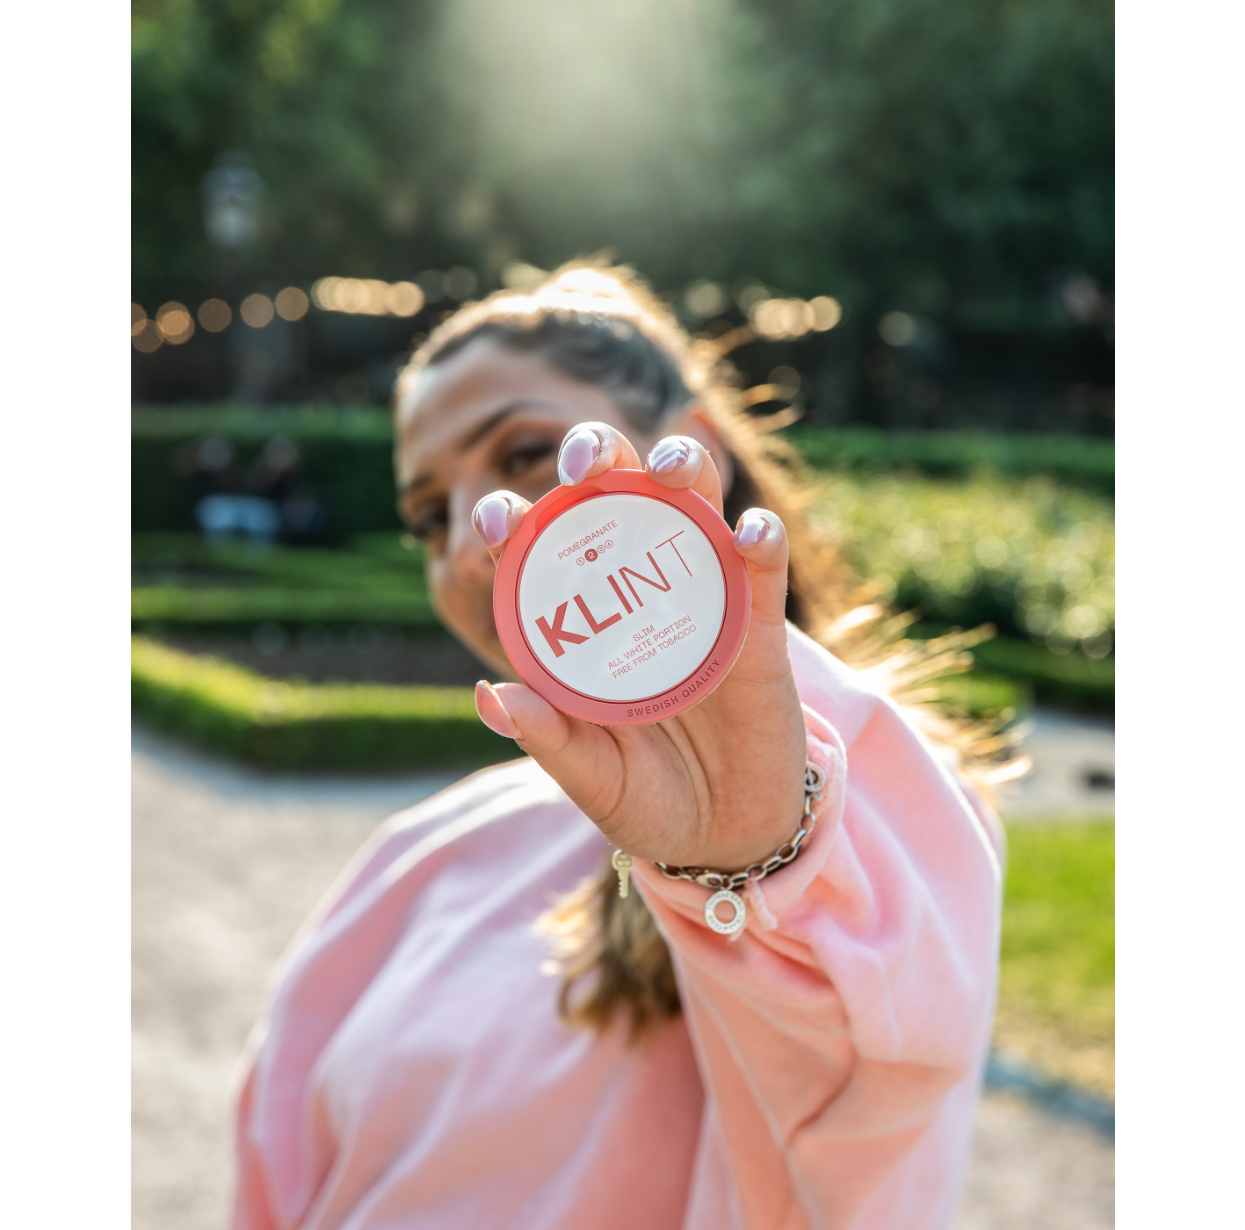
#include <cairo.h>
#include <math.h>
#include <stddef.h>


static void picture(cairo_t *cr, const char *path, double x, double y, double w, double h) {
    cairo_surface_t *image = cairo_image_surface_create_from_png(path);
    cairo_save(cr);
    cairo_set_source_surface(cr, image, x, y);
    cairo_rectangle(cr, x, y, w, h);
    cairo_fill(cr);
    cairo_restore(cr);
    cairo_surface_destroy(image);
}

int main(void) {
    cairo_surface_t *surface = cairo_image_surface_create(CAIRO_FORMAT_RGB24, 1245, 1230);
    cairo_t *cr = cairo_create(surface);
    cairo_font_options_t *options = cairo_font_options_create();
    cairo_font_options_set_hint_metrics(options, CAIRO_HINT_METRICS_OFF);
    cairo_font_options_set_hint_style(options, CAIRO_HINT_STYLE_NONE);
    cairo_set_font_options(cr, options);
    cairo_set_miter_limit(cr, 4);
    cairo_set_source_rgb(cr, 1, 1, 1);
    cairo_paint(cr);
    picture(cr, "img1.png", 131, 0, 984, 1230);
    cairo_surface_write_to_png(surface, "page.png");
    cairo_font_options_destroy(options);
    cairo_destroy(cr);
    cairo_surface_destroy(surface);
    return 0;
}
